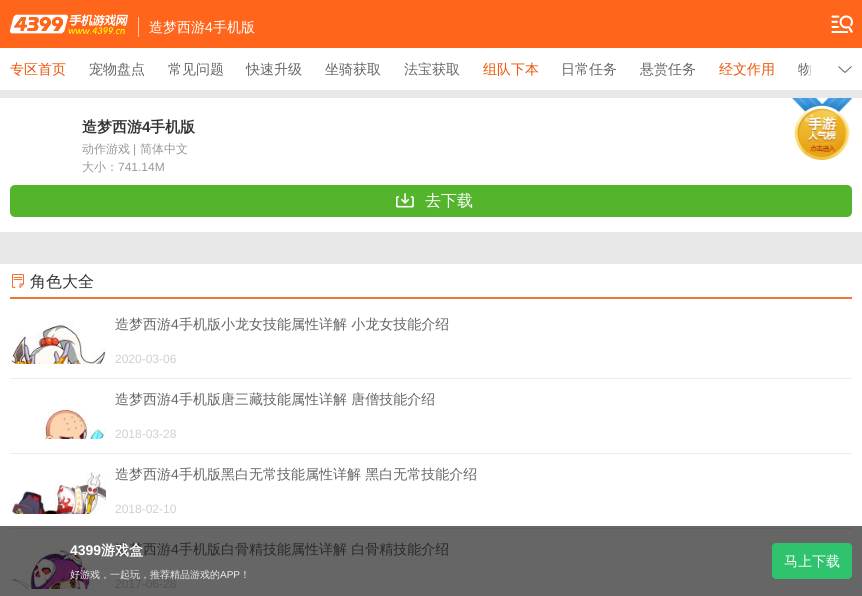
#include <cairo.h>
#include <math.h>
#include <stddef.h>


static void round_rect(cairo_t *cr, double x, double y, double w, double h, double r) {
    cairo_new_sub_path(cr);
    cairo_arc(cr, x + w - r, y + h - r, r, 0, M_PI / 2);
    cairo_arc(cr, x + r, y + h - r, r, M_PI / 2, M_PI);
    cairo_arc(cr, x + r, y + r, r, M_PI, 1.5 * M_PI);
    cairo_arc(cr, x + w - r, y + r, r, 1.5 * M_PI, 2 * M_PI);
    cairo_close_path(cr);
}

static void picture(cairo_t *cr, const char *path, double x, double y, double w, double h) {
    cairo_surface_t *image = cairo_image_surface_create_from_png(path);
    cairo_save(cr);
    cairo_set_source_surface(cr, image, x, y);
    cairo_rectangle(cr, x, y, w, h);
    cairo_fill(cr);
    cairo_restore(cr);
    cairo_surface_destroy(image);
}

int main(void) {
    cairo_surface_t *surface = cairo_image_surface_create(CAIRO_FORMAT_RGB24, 862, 596);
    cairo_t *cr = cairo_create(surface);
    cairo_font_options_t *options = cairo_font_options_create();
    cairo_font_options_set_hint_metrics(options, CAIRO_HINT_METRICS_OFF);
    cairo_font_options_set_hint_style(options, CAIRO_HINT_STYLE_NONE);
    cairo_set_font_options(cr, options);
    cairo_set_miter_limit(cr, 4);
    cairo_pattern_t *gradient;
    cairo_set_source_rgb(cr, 0.91, 0.91, 0.91);
    cairo_paint(cr);
    cairo_set_source_rgb(cr, 1, 0.4, 0.106);
    cairo_rectangle(cr, 0, 0, 862, 48);
    cairo_fill(cr);
    picture(cr, "img1.png", 10, 14, 118, 20);
    cairo_set_source_rgb(cr, 0.957, 0.796, 0.729);
    cairo_rectangle(cr, 138, 17, 1, 20);
    cairo_fill(cr);
    cairo_select_font_face(cr, "WenQuanYi Zen Hei Medium", CAIRO_FONT_SLANT_NORMAL, CAIRO_FONT_WEIGHT_NORMAL);
    cairo_set_font_size(cr, 14);
    cairo_set_source_rgb(cr, 1, 1, 1);
    cairo_move_to(cr, 149, 32);
    cairo_show_text(cr, "造梦西游");
    cairo_select_font_face(cr, "Liberation Sans", CAIRO_FONT_SLANT_NORMAL, CAIRO_FONT_WEIGHT_NORMAL);
    cairo_move_to(cr, 205, 32);
    cairo_show_text(cr, "4");
    cairo_select_font_face(cr, "WenQuanYi Zen Hei Medium", CAIRO_FONT_SLANT_NORMAL, CAIRO_FONT_WEIGHT_NORMAL);
    cairo_move_to(cr, 213, 32);
    cairo_show_text(cr, "手机版");
    picture(cr, "img2.png", 831, 15, 22, 18);
    cairo_rectangle(cr, 0, 48, 862, 42);
    cairo_fill(cr);
    cairo_set_source_rgb(cr, 0.922, 0.337, 0.024);
    cairo_move_to(cr, 10, 74);
    cairo_show_text(cr, "专区首页");
    cairo_set_source_rgb(cr, 0.4, 0.4, 0.4);
    cairo_move_to(cr, 89, 74);
    cairo_show_text(cr, "宠物盘点");
    cairo_move_to(cr, 168, 74);
    cairo_show_text(cr, "常见问题");
    cairo_move_to(cr, 246, 74);
    cairo_show_text(cr, "快速升级");
    cairo_move_to(cr, 325, 74);
    cairo_show_text(cr, "坐骑获取");
    cairo_move_to(cr, 404, 74);
    cairo_show_text(cr, "法宝获取");
    cairo_set_source_rgb(cr, 0.922, 0.337, 0.024);
    cairo_move_to(cr, 483, 74);
    cairo_show_text(cr, "组队下本");
    cairo_set_source_rgb(cr, 0.4, 0.4, 0.4);
    cairo_move_to(cr, 561, 74);
    cairo_show_text(cr, "日常任务");
    cairo_move_to(cr, 640, 74);
    cairo_show_text(cr, "悬赏任务");
    cairo_set_source_rgb(cr, 0.922, 0.337, 0.024);
    cairo_move_to(cr, 719, 74);
    cairo_show_text(cr, "经文作用");
    cairo_set_source_rgb(cr, 0.4, 0.4, 0.4);
    cairo_move_to(cr, 798, 74);
    cairo_show_text(cr, "物");
    gradient = cairo_pattern_create_radial(0, 0, 0, 0, 0, 1);
    cairo_pattern_set_matrix(gradient, &(cairo_matrix_t){1.0 / 28, 0, 0, 1.0 / 30, -1.0 * 828 / 28, -1.0 * 69 / 30});
    cairo_pattern_add_color_stop_rgba(gradient, 0, 1, 1, 1, 1);
    cairo_pattern_add_color_stop_rgba(gradient, 1, 1, 1, 1, 0.5);
    cairo_set_source(cr, gradient);
    cairo_pattern_destroy(gradient);
    cairo_rectangle(cr, 808, 65, 3, 11);
    cairo_fill(cr);
    picture(cr, "img3.png", 838, 66, 14, 7);
    cairo_set_source_rgb(cr, 1, 1, 1);
    cairo_rectangle(cr, 0, 98, 862, 134);
    cairo_fill(cr);
    cairo_select_font_face(cr, "WenQuanYi Zen Hei", CAIRO_FONT_SLANT_NORMAL, CAIRO_FONT_WEIGHT_BOLD);
    cairo_set_font_size(cr, 15);
    cairo_set_source_rgb(cr, 0.204, 0.204, 0.204);
    cairo_move_to(cr, 82, 132);
    cairo_show_text(cr, "造梦西游");
    cairo_select_font_face(cr, "Liberation Sans", CAIRO_FONT_SLANT_NORMAL, CAIRO_FONT_WEIGHT_BOLD);
    cairo_move_to(cr, 142, 132);
    cairo_show_text(cr, "4");
    cairo_select_font_face(cr, "WenQuanYi Zen Hei", CAIRO_FONT_SLANT_NORMAL, CAIRO_FONT_WEIGHT_BOLD);
    cairo_move_to(cr, 150, 132);
    cairo_show_text(cr, "手机版");
    cairo_select_font_face(cr, "WenQuanYi Zen Hei Medium", CAIRO_FONT_SLANT_NORMAL, CAIRO_FONT_WEIGHT_NORMAL);
    cairo_set_font_size(cr, 12);
    cairo_set_source_rgb(cr, 0.6, 0.6, 0.6);
    cairo_move_to(cr, 82, 153);
    cairo_show_text(cr, "动作游戏");
    cairo_select_font_face(cr, "Liberation Sans", CAIRO_FONT_SLANT_NORMAL, CAIRO_FONT_WEIGHT_NORMAL);
    cairo_move_to(cr, 133, 153);
    cairo_show_text(cr, "|");
    cairo_select_font_face(cr, "WenQuanYi Zen Hei Medium", CAIRO_FONT_SLANT_NORMAL, CAIRO_FONT_WEIGHT_NORMAL);
    cairo_move_to(cr, 140, 153);
    cairo_show_text(cr, "简体中文");
    cairo_move_to(cr, 82, 171);
    cairo_show_text(cr, "大小：");
    cairo_select_font_face(cr, "Liberation Sans", CAIRO_FONT_SLANT_NORMAL, CAIRO_FONT_WEIGHT_NORMAL);
    cairo_move_to(cr, 118, 171);
    cairo_show_text(cr, "741.14M");
    picture(cr, "img4.png", 792, 98, 60, 62);
    cairo_set_source_rgb(cr, 0.329, 0.706, 0.173);
    round_rect(cr, 10, 185, 842, 32, 5);
    cairo_fill(cr);
    picture(cr, "img5.png", 396, 193, 18, 15);
    cairo_select_font_face(cr, "WenQuanYi Zen Hei Medium", CAIRO_FONT_SLANT_NORMAL, CAIRO_FONT_WEIGHT_NORMAL);
    cairo_set_font_size(cr, 16);
    cairo_set_source_rgb(cr, 1, 1, 1);
    cairo_move_to(cr, 425, 206);
    cairo_show_text(cr, "去下载");
    cairo_rectangle(cr, 0, 264, 862, 262);
    cairo_fill(cr);
    cairo_set_source_rgb(cr, 0.4, 0.4, 0.4);
    cairo_rectangle(cr, 0, 526, 862, 70);
    cairo_fill(cr);
    picture(cr, "img6.png", 12, 274, 13, 14);
    cairo_set_source_rgb(cr, 0.945, 0.455, 0.212);
    cairo_rectangle(cr, 10, 297, 842, 2);
    cairo_fill(cr);
    cairo_set_source_rgb(cr, 0.204, 0.204, 0.204);
    cairo_move_to(cr, 30, 287);
    cairo_show_text(cr, "角色大全");
    cairo_set_source_rgb(cr, 0.929, 0.929, 0.929);
    cairo_rectangle(cr, 10, 378, 842, 1);
    cairo_fill(cr);
    picture(cr, "img7.png", 10, 322, 96, 42);
    cairo_set_font_size(cr, 14);
    cairo_set_source_rgb(cr, 0.4, 0.4, 0.4);
    cairo_move_to(cr, 115, 329);
    cairo_show_text(cr, "造梦西游");
    cairo_select_font_face(cr, "Liberation Sans", CAIRO_FONT_SLANT_NORMAL, CAIRO_FONT_WEIGHT_NORMAL);
    cairo_move_to(cr, 171, 329);
    cairo_show_text(cr, "4");
    cairo_select_font_face(cr, "WenQuanYi Zen Hei Medium", CAIRO_FONT_SLANT_NORMAL, CAIRO_FONT_WEIGHT_NORMAL);
    cairo_move_to(cr, 179, 329);
    cairo_show_text(cr, "手机版小龙女技能属性详解 小龙女技能介绍");
    cairo_select_font_face(cr, "Liberation Sans", CAIRO_FONT_SLANT_NORMAL, CAIRO_FONT_WEIGHT_NORMAL);
    cairo_set_font_size(cr, 12);
    cairo_set_source_rgb(cr, 0.812, 0.812, 0.812);
    cairo_move_to(cr, 115, 363);
    cairo_show_text(cr, "2020-03-06");
    cairo_set_source_rgb(cr, 0.929, 0.929, 0.929);
    cairo_rectangle(cr, 10, 453, 842, 1);
    cairo_fill(cr);
    picture(cr, "img8.png", 42, 409, 64, 30);
    cairo_select_font_face(cr, "WenQuanYi Zen Hei Medium", CAIRO_FONT_SLANT_NORMAL, CAIRO_FONT_WEIGHT_NORMAL);
    cairo_set_font_size(cr, 14);
    cairo_set_source_rgb(cr, 0.4, 0.4, 0.4);
    cairo_move_to(cr, 115, 404);
    cairo_show_text(cr, "造梦西游");
    cairo_select_font_face(cr, "Liberation Sans", CAIRO_FONT_SLANT_NORMAL, CAIRO_FONT_WEIGHT_NORMAL);
    cairo_move_to(cr, 171, 404);
    cairo_show_text(cr, "4");
    cairo_select_font_face(cr, "WenQuanYi Zen Hei Medium", CAIRO_FONT_SLANT_NORMAL, CAIRO_FONT_WEIGHT_NORMAL);
    cairo_move_to(cr, 179, 404);
    cairo_show_text(cr, "手机版唐三藏技能属性详解 唐僧技能介绍");
    cairo_select_font_face(cr, "Liberation Sans", CAIRO_FONT_SLANT_NORMAL, CAIRO_FONT_WEIGHT_NORMAL);
    cairo_set_font_size(cr, 12);
    cairo_set_source_rgb(cr, 0.812, 0.812, 0.812);
    cairo_move_to(cr, 115, 438);
    cairo_show_text(cr, "2018-03-28");
    cairo_set_source_rgb(cr, 0.373, 0.373, 0.373);
    cairo_rectangle(cr, 10, 528, 842, 1);
    cairo_fill(cr);
    picture(cr, "img9.png", 10, 472, 96, 42);
    cairo_select_font_face(cr, "WenQuanYi Zen Hei Medium", CAIRO_FONT_SLANT_NORMAL, CAIRO_FONT_WEIGHT_NORMAL);
    cairo_set_font_size(cr, 14);
    cairo_set_source_rgb(cr, 0.4, 0.4, 0.4);
    cairo_move_to(cr, 115, 479);
    cairo_show_text(cr, "造梦西游");
    cairo_select_font_face(cr, "Liberation Sans", CAIRO_FONT_SLANT_NORMAL, CAIRO_FONT_WEIGHT_NORMAL);
    cairo_move_to(cr, 171, 479);
    cairo_show_text(cr, "4");
    cairo_select_font_face(cr, "WenQuanYi Zen Hei Medium", CAIRO_FONT_SLANT_NORMAL, CAIRO_FONT_WEIGHT_NORMAL);
    cairo_move_to(cr, 179, 479);
    cairo_show_text(cr, "手机版黑白无常技能属性详解 黑白无常技能介绍");
    cairo_select_font_face(cr, "Liberation Sans", CAIRO_FONT_SLANT_NORMAL, CAIRO_FONT_WEIGHT_NORMAL);
    cairo_set_font_size(cr, 12);
    cairo_set_source_rgb(cr, 0.812, 0.812, 0.812);
    cairo_move_to(cr, 115, 513);
    cairo_show_text(cr, "2018-02-10");
    picture(cr, "img10.png", 10, 548, 83, 41);
    cairo_select_font_face(cr, "WenQuanYi Zen Hei Medium", CAIRO_FONT_SLANT_NORMAL, CAIRO_FONT_WEIGHT_NORMAL);
    cairo_set_font_size(cr, 14);
    cairo_set_source_rgb(cr, 0.161, 0.161, 0.161);
    cairo_move_to(cr, 115, 554);
    cairo_show_text(cr, "造梦西游");
    cairo_select_font_face(cr, "Liberation Sans", CAIRO_FONT_SLANT_NORMAL, CAIRO_FONT_WEIGHT_NORMAL);
    cairo_move_to(cr, 171, 554);
    cairo_show_text(cr, "4");
    cairo_select_font_face(cr, "WenQuanYi Zen Hei Medium", CAIRO_FONT_SLANT_NORMAL, CAIRO_FONT_WEIGHT_NORMAL);
    cairo_move_to(cr, 179, 554);
    cairo_show_text(cr, "手机版白骨精技能属性详解 白骨精技能介绍");
    cairo_select_font_face(cr, "Liberation Sans", CAIRO_FONT_SLANT_NORMAL, CAIRO_FONT_WEIGHT_NORMAL);
    cairo_set_font_size(cr, 12);
    cairo_set_source_rgb(cr, 0.325, 0.325, 0.325);
    cairo_move_to(cr, 115, 588);
    cairo_show_text(cr, "2017-06-28");
    cairo_select_font_face(cr, "Liberation Sans", CAIRO_FONT_SLANT_NORMAL, CAIRO_FONT_WEIGHT_BOLD);
    cairo_set_font_size(cr, 14);
    cairo_set_source_rgb(cr, 1, 1, 1);
    cairo_move_to(cr, 70, 555);
    cairo_show_text(cr, "4399");
    cairo_select_font_face(cr, "WenQuanYi Zen Hei", CAIRO_FONT_SLANT_NORMAL, CAIRO_FONT_WEIGHT_BOLD);
    cairo_move_to(cr, 101, 555);
    cairo_show_text(cr, "游戏盒");
    cairo_set_source_rgb(cr, 0.184, 0.765, 0.431);
    round_rect(cr, 772, 543, 80, 36, 4);
    cairo_fill(cr);
    cairo_select_font_face(cr, "WenQuanYi Zen Hei Medium", CAIRO_FONT_SLANT_NORMAL, CAIRO_FONT_WEIGHT_NORMAL);
    cairo_set_source_rgb(cr, 1, 1, 1);
    cairo_move_to(cr, 784, 566);
    cairo_show_text(cr, "马上下载");
    cairo_set_font_size(cr, 10);
    cairo_set_source_rgb(cr, 0.933, 0.933, 0.933);
    cairo_move_to(cr, 70, 578);
    cairo_show_text(cr, "好游戏，一起玩，推荐精品游戏的");
    cairo_select_font_face(cr, "Liberation Sans", CAIRO_FONT_SLANT_NORMAL, CAIRO_FONT_WEIGHT_NORMAL);
    cairo_move_to(cr, 220, 578);
    cairo_show_text(cr, "APP");
    cairo_select_font_face(cr, "WenQuanYi Zen Hei Medium", CAIRO_FONT_SLANT_NORMAL, CAIRO_FONT_WEIGHT_NORMAL);
    cairo_move_to(cr, 240, 578);
    cairo_show_text(cr, "！");
    cairo_surface_write_to_png(surface, "page.png");
    cairo_font_options_destroy(options);
    cairo_destroy(cr);
    cairo_surface_destroy(surface);
    return 0;
}
